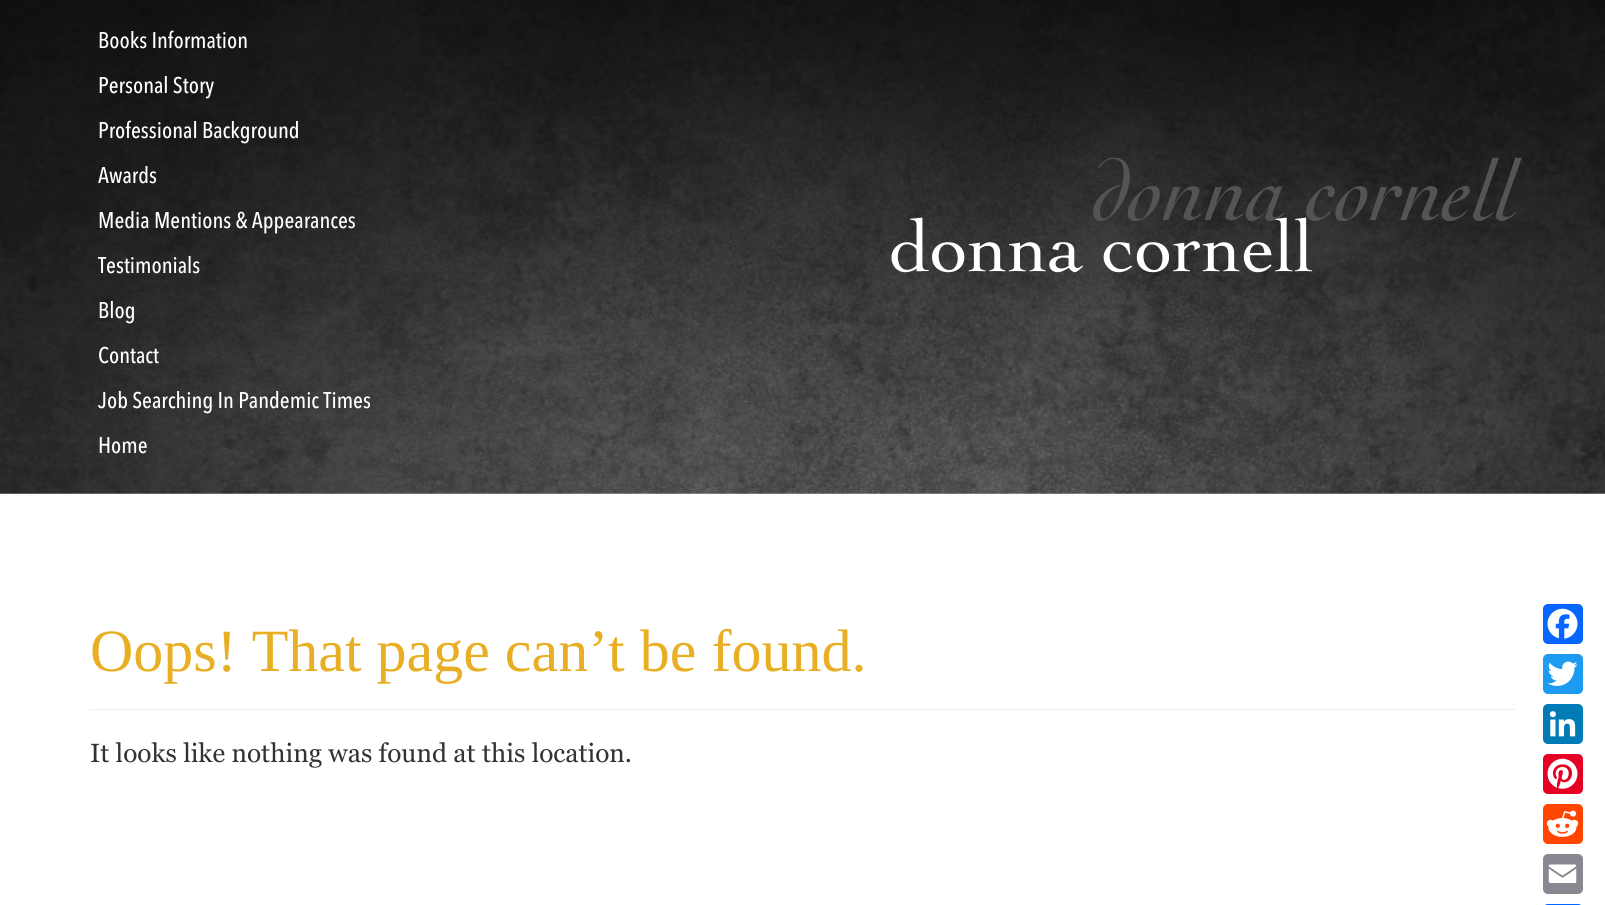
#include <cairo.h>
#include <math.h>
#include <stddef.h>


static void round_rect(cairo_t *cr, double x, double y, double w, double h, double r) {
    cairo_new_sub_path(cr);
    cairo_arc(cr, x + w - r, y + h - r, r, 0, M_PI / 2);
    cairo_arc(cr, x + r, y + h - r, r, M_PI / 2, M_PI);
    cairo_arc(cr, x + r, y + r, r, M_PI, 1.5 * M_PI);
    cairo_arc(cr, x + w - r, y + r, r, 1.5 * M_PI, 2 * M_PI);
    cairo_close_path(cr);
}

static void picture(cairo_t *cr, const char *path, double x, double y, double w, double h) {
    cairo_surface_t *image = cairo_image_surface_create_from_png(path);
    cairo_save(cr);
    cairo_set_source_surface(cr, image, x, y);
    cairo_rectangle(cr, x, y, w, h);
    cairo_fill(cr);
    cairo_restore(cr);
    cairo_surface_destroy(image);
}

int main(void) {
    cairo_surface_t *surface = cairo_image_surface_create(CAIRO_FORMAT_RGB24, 1605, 905);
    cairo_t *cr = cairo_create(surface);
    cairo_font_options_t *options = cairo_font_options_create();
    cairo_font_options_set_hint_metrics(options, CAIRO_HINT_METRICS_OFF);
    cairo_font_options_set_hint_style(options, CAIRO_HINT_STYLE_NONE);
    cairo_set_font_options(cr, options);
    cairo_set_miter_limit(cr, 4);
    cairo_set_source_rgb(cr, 1, 1, 1);
    cairo_paint(cr);
    picture(cr, "img1.png", 0, 0, 1605, 494);
    cairo_select_font_face(cr, "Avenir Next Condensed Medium", CAIRO_FONT_SLANT_NORMAL, CAIRO_FONT_WEIGHT_NORMAL);
    cairo_set_font_size(cr, 22.5);
    cairo_set_source_rgb(cr, 1, 1, 1);
    cairo_move_to(cr, 98, 48);
    cairo_show_text(cr, "Books Information");
    cairo_move_to(cr, 98, 93);
    cairo_show_text(cr, "Personal Story");
    cairo_move_to(cr, 98, 138);
    cairo_show_text(cr, "Professional Background");
    cairo_move_to(cr, 98, 183);
    cairo_show_text(cr, "Awards");
    cairo_move_to(cr, 98, 228);
    cairo_show_text(cr, "Media Mentions & Appearances");
    cairo_move_to(cr, 98, 273);
    cairo_show_text(cr, "Testimonials");
    cairo_move_to(cr, 98, 318);
    cairo_show_text(cr, "Blog");
    cairo_move_to(cr, 98, 363);
    cairo_show_text(cr, "Contact");
    cairo_move_to(cr, 98, 408);
    cairo_show_text(cr, "Job Searching In Pandemic Times");
    cairo_move_to(cr, 98, 453);
    cairo_show_text(cr, "Home");
    cairo_select_font_face(cr, "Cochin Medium", CAIRO_FONT_SLANT_ITALIC, CAIRO_FONT_WEIGHT_NORMAL);
    cairo_set_font_size(cr, 87.5);
    cairo_set_source_rgb(cr, 0.329, 0.329, 0.329);
    cairo_move_to(cr, 1094, 220);
    cairo_show_text(cr, "donna cornell");
    cairo_select_font_face(cr, "Cochin Medium", CAIRO_FONT_SLANT_NORMAL, CAIRO_FONT_WEIGHT_NORMAL);
    cairo_set_font_size(cr, 75);
    cairo_set_source_rgb(cr, 1, 1, 1);
    cairo_move_to(cr, 890, 271);
    cairo_show_text(cr, "donna cornell");
    cairo_set_source_rgb(cr, 0.933, 0.933, 0.933);
    cairo_rectangle(cr, 90, 709, 1425, 1);
    cairo_fill(cr);
    cairo_select_font_face(cr, "Liberation Serif", CAIRO_FONT_SLANT_NORMAL, CAIRO_FONT_WEIGHT_NORMAL);
    cairo_set_font_size(cr, 60);
    cairo_set_source_rgb(cr, 0.91, 0.686, 0.145);
    cairo_move_to(cr, 90, 671);
    cairo_show_text(cr, "Oops! That page can’t be found.");
    cairo_select_font_face(cr, "Georgia", CAIRO_FONT_SLANT_NORMAL, CAIRO_FONT_WEIGHT_NORMAL);
    cairo_set_font_size(cr, 26.25);
    cairo_set_source_rgb(cr, 0.2, 0.2, 0.2);
    cairo_move_to(cr, 90, 762);
    cairo_show_text(cr, "It looks like nothing was found at this location.");
    cairo_set_source_rgb(cr, 0.031, 0.4, 1);
    round_rect(cr, 1543, 604, 40, 40, 5);
    cairo_fill(cr);
    picture(cr, "img2.png", 1547, 608, 31, 31);
    cairo_set_source_rgb(cr, 0.114, 0.608, 0.941);
    round_rect(cr, 1543, 654, 40, 40, 5);
    cairo_fill(cr);
    picture(cr, "img3.png", 1547, 661, 31, 25);
    cairo_set_source_rgb(cr, 0, 0.482, 0.71);
    round_rect(cr, 1543, 704, 40, 40, 5);
    cairo_fill(cr);
    picture(cr, "img4.png", 1549, 711, 27, 26);
    cairo_set_source_rgb(cr, 0.902, 0, 0.137);
    round_rect(cr, 1543, 754, 40, 40, 5);
    cairo_fill(cr);
    picture(cr, "img5.png", 1547, 758, 31, 31);
    cairo_set_source_rgb(cr, 1, 0.271, 0);
    round_rect(cr, 1543, 804, 40, 40, 5);
    cairo_fill(cr);
    picture(cr, "img6.png", 1546, 810, 33, 27);
    cairo_set_source_rgb(cr, 0.533, 0.537, 0.565);
    round_rect(cr, 1543, 854, 40, 40, 5);
    cairo_fill(cr);
    picture(cr, "img7.png", 1548, 864, 29, 19);
    cairo_set_source_rgb(cr, 0.004, 0.4, 1);
    round_rect(cr, 1543, 904, 40, 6, 5);
    cairo_fill(cr);
    cairo_surface_write_to_png(surface, "page.png");
    cairo_font_options_destroy(options);
    cairo_destroy(cr);
    cairo_surface_destroy(surface);
    return 0;
}
